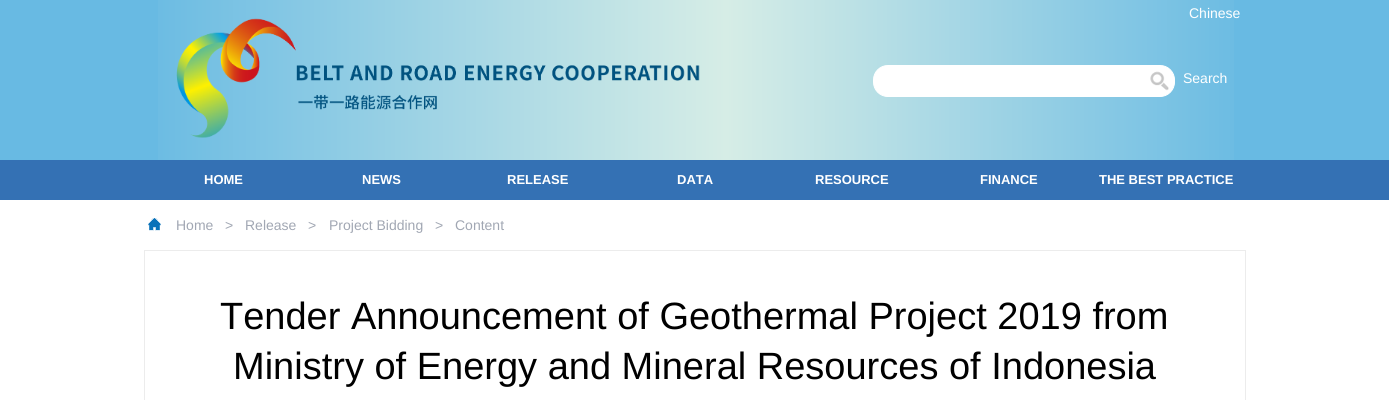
#include <cairo.h>
#include <math.h>
#include <stddef.h>


static void round_rect(cairo_t *cr, double x, double y, double w, double h, double r) {
    cairo_new_sub_path(cr);
    cairo_arc(cr, x + w - r, y + h - r, r, 0, M_PI / 2);
    cairo_arc(cr, x + r, y + h - r, r, M_PI / 2, M_PI);
    cairo_arc(cr, x + r, y + r, r, M_PI, 1.5 * M_PI);
    cairo_arc(cr, x + w - r, y + r, r, 1.5 * M_PI, 2 * M_PI);
    cairo_close_path(cr);
}

static void picture(cairo_t *cr, const char *path, double x, double y, double w, double h) {
    cairo_surface_t *image = cairo_image_surface_create_from_png(path);
    cairo_save(cr);
    cairo_set_source_surface(cr, image, x, y);
    cairo_rectangle(cr, x, y, w, h);
    cairo_fill(cr);
    cairo_restore(cr);
    cairo_surface_destroy(image);
}

int main(void) {
    cairo_surface_t *surface = cairo_image_surface_create(CAIRO_FORMAT_RGB24, 1389, 400);
    cairo_t *cr = cairo_create(surface);
    cairo_font_options_t *options = cairo_font_options_create();
    cairo_font_options_set_hint_metrics(options, CAIRO_HINT_METRICS_OFF);
    cairo_font_options_set_hint_style(options, CAIRO_HINT_STYLE_NONE);
    cairo_set_font_options(cr, options);
    cairo_set_miter_limit(cr, 4);
    cairo_set_source_rgb(cr, 1, 1, 1);
    cairo_paint(cr);
    cairo_set_source_rgb(cr, 0.408, 0.729, 0.89);
    cairo_rectangle(cr, 0, 0, 1389, 160);
    cairo_fill(cr);
    picture(cr, "img1.png", 158, 0, 1076, 160);
    cairo_select_font_face(cr, "Liberation Sans", CAIRO_FONT_SLANT_NORMAL, CAIRO_FONT_WEIGHT_NORMAL);
    cairo_set_font_size(cr, 14);
    cairo_set_source_rgb(cr, 1, 1, 1);
    cairo_move_to(cr, 1189, 18);
    cairo_show_text(cr, "Chinese");
    picture(cr, "img2.png", 176, 18, 524, 120);
    round_rect(cr, 873.5, 65.5, 301, 31, 14.5);
    cairo_fill_preserve(cr);
    cairo_set_line_width(cr, 1);
    cairo_stroke(cr);
    picture(cr, "img3.png", 1150, 71, 19, 20);
    cairo_move_to(cr, 1183, 83);
    cairo_show_text(cr, "Search");
    cairo_set_source_rgb(cr, 0.204, 0.443, 0.706);
    cairo_rectangle(cr, 0, 160, 1389, 40);
    cairo_fill(cr);
    cairo_select_font_face(cr, "Liberation Sans", CAIRO_FONT_SLANT_NORMAL, CAIRO_FONT_WEIGHT_BOLD);
    cairo_set_font_size(cr, 13);
    cairo_set_source_rgb(cr, 1, 1, 1);
    cairo_move_to(cr, 204, 184);
    cairo_show_text(cr, "HOME");
    cairo_move_to(cr, 362, 184);
    cairo_show_text(cr, "NEWS");
    cairo_move_to(cr, 507, 184);
    cairo_show_text(cr, "RELEASE");
    cairo_move_to(cr, 677, 184);
    cairo_show_text(cr, "DATA");
    cairo_move_to(cr, 815, 184);
    cairo_show_text(cr, "RESOURCE");
    cairo_move_to(cr, 980, 184);
    cairo_show_text(cr, "FINANCE");
    cairo_move_to(cr, 1099, 184);
    cairo_show_text(cr, "THE BEST PRACTICE");
    picture(cr, "img4.png", 148, 218, 13, 13);
    cairo_select_font_face(cr, "Liberation Sans", CAIRO_FONT_SLANT_NORMAL, CAIRO_FONT_WEIGHT_NORMAL);
    cairo_set_font_size(cr, 14);
    cairo_set_source_rgb(cr, 0.631, 0.655, 0.702);
    cairo_move_to(cr, 176, 230);
    cairo_show_text(cr, "Home");
    cairo_move_to(cr, 225, 230);
    cairo_show_text(cr, ">");
    cairo_move_to(cr, 245, 230);
    cairo_show_text(cr, "Release");
    cairo_move_to(cr, 308, 230);
    cairo_show_text(cr, ">");
    cairo_move_to(cr, 329, 230);
    cairo_show_text(cr, "Project Bidding");
    cairo_move_to(cr, 435, 230);
    cairo_show_text(cr, ">");
    cairo_move_to(cr, 455, 230);
    cairo_show_text(cr, "Content");
    cairo_rectangle(cr, 144.5, 250.5, 1101, 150);
    cairo_set_source_rgb(cr, 0.922, 0.922, 0.925);
    cairo_stroke(cr);
    cairo_set_font_size(cr, 38);
    cairo_set_source_rgb(cr, 0, 0, 0);
    cairo_move_to(cr, 220, 329);
    cairo_show_text(cr, "Tender Announcement of Geothermal Project 2019 from");
    cairo_move_to(cr, 233, 379);
    cairo_show_text(cr, "Ministry of Energy and Mineral Resources of Indonesia");
    cairo_surface_write_to_png(surface, "page.png");
    cairo_font_options_destroy(options);
    cairo_destroy(cr);
    cairo_surface_destroy(surface);
    return 0;
}
